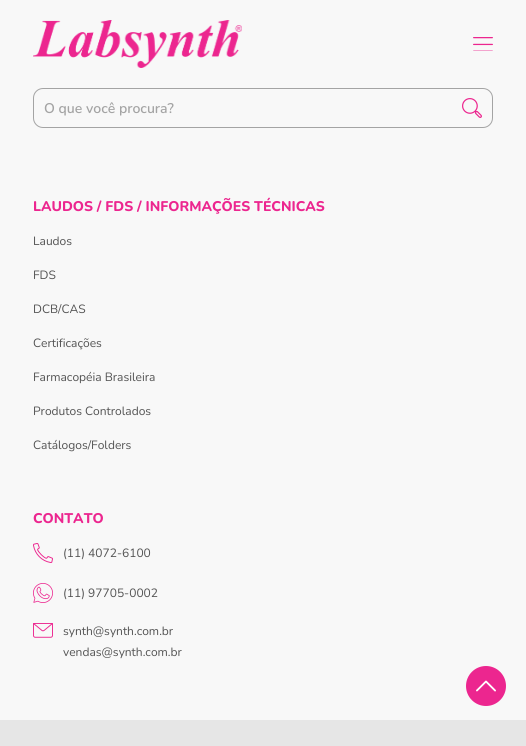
#include <cairo.h>
#include <math.h>
#include <stddef.h>


static void round_rect(cairo_t *cr, double x, double y, double w, double h, double r) {
    cairo_new_sub_path(cr);
    cairo_arc(cr, x + w - r, y + h - r, r, 0, M_PI / 2);
    cairo_arc(cr, x + r, y + h - r, r, M_PI / 2, M_PI);
    cairo_arc(cr, x + r, y + r, r, M_PI, 1.5 * M_PI);
    cairo_arc(cr, x + w - r, y + r, r, 1.5 * M_PI, 2 * M_PI);
    cairo_close_path(cr);
}

static void picture(cairo_t *cr, const char *path, double x, double y, double w, double h) {
    cairo_surface_t *image = cairo_image_surface_create_from_png(path);
    cairo_save(cr);
    cairo_set_source_surface(cr, image, x, y);
    cairo_rectangle(cr, x, y, w, h);
    cairo_fill(cr);
    cairo_restore(cr);
    cairo_surface_destroy(image);
}

int main(void) {
    cairo_surface_t *surface = cairo_image_surface_create(CAIRO_FORMAT_RGB24, 526, 746);
    cairo_t *cr = cairo_create(surface);
    cairo_font_options_t *options = cairo_font_options_create();
    cairo_font_options_set_hint_metrics(options, CAIRO_HINT_METRICS_OFF);
    cairo_font_options_set_hint_style(options, CAIRO_HINT_STYLE_NONE);
    cairo_set_font_options(cr, options);
    cairo_set_miter_limit(cr, 4);
    cairo_set_source_rgb(cr, 0.969, 0.969, 0.969);
    cairo_paint(cr);
    picture(cr, "img1.png", 33, 20, 209, 48);
    picture(cr, "img2.png", 473, 37, 20, 14);
    round_rect(cr, 33.5, 88.5, 459, 39, 9.5);
    cairo_set_source_rgb(cr, 0.643, 0.643, 0.643);
    cairo_set_line_width(cr, 1);
    cairo_stroke(cr);
    cairo_select_font_face(cr, "Nunito SemiBold", CAIRO_FONT_SLANT_NORMAL, CAIRO_FONT_WEIGHT_NORMAL);
    cairo_set_font_size(cr, 14);
    cairo_move_to(cr, 44, 113);
    cairo_show_text(cr, "O que você procura?");
    picture(cr, "img3.png", 462, 98, 20, 20);
    cairo_select_font_face(cr, "Nunito ExtraBold", CAIRO_FONT_SLANT_NORMAL, CAIRO_FONT_WEIGHT_NORMAL);
    cairo_set_source_rgb(cr, 0.925, 0.149, 0.561);
    cairo_move_to(cr, 33, 211);
    cairo_show_text(cr, "LAUDOS / FDS / INFORMAÇÕES TÉCNICAS");
    cairo_select_font_face(cr, "Nunito", CAIRO_FONT_SLANT_NORMAL, CAIRO_FONT_WEIGHT_NORMAL);
    cairo_set_font_size(cr, 12);
    cairo_set_source_rgb(cr, 0.325, 0.325, 0.325);
    cairo_move_to(cr, 33, 245);
    cairo_show_text(cr, "Laudos");
    cairo_move_to(cr, 33, 279);
    cairo_show_text(cr, "FDS");
    cairo_move_to(cr, 33, 313);
    cairo_show_text(cr, "DCB/CAS");
    cairo_move_to(cr, 33, 347);
    cairo_show_text(cr, "Certificações");
    cairo_move_to(cr, 33, 381);
    cairo_show_text(cr, "Farmacopéia Brasileira");
    cairo_move_to(cr, 33, 415);
    cairo_show_text(cr, "Produtos Controlados");
    cairo_move_to(cr, 33, 449);
    cairo_show_text(cr, "Catálogos/Folders");
    cairo_select_font_face(cr, "Nunito ExtraBold", CAIRO_FONT_SLANT_NORMAL, CAIRO_FONT_WEIGHT_NORMAL);
    cairo_set_font_size(cr, 14);
    cairo_set_source_rgb(cr, 0.925, 0.149, 0.561);
    cairo_move_to(cr, 33, 523);
    cairo_show_text(cr, "CONTATO");
    picture(cr, "img4.png", 33, 543, 20, 20);
    cairo_select_font_face(cr, "Nunito", CAIRO_FONT_SLANT_NORMAL, CAIRO_FONT_WEIGHT_NORMAL);
    cairo_set_font_size(cr, 12);
    cairo_set_source_rgb(cr, 0.325, 0.325, 0.325);
    cairo_move_to(cr, 63, 557);
    cairo_show_text(cr, "(11) 4072-6100");
    picture(cr, "img5.png", 33, 583, 20, 20);
    cairo_move_to(cr, 63, 597);
    cairo_show_text(cr, "(11) 97705-0002");
    picture(cr, "img6.png", 33, 623, 20, 15);
    cairo_move_to(cr, 63, 635);
    cairo_show_text(cr, "synth@synth.com.br");
    cairo_move_to(cr, 63, 656);
    cairo_show_text(cr, "vendas@synth.com.br");
    cairo_set_source_rgb(cr, 0.902, 0.902, 0.902);
    cairo_rectangle(cr, 0, 720, 526, 26);
    cairo_fill(cr);
    picture(cr, "img7.png", 466, 666, 40, 40);
    cairo_surface_write_to_png(surface, "page.png");
    cairo_font_options_destroy(options);
    cairo_destroy(cr);
    cairo_surface_destroy(surface);
    return 0;
}
